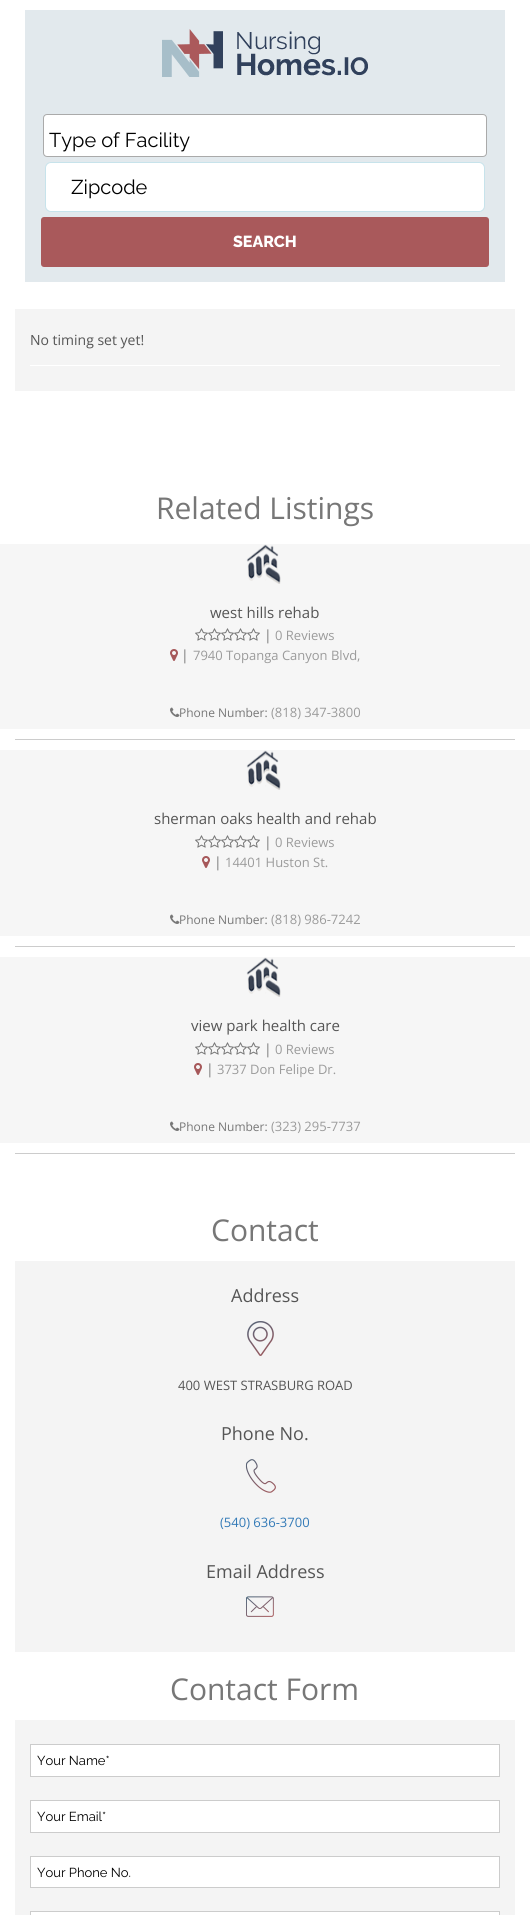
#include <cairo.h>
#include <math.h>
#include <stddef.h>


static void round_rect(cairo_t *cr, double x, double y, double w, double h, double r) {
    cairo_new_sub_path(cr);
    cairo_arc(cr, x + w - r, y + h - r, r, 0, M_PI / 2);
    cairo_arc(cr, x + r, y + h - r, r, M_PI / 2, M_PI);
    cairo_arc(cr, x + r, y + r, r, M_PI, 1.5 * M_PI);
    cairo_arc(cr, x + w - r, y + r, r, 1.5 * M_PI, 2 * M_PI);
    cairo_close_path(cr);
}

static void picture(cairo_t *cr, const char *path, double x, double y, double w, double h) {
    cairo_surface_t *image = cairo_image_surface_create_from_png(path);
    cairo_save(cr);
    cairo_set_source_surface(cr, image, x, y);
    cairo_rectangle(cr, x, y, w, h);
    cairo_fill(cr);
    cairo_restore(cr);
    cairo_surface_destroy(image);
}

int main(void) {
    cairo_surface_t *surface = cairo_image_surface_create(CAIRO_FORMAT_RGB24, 530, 1915);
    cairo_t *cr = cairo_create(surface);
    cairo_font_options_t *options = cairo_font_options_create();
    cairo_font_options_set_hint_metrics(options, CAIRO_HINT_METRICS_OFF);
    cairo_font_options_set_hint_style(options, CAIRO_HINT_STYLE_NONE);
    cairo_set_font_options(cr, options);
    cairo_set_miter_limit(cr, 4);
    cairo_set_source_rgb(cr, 1, 1, 1);
    cairo_paint(cr);
    cairo_set_source_rgb(cr, 0.886, 0.914, 0.929);
    cairo_rectangle(cr, 25, 10, 480, 272);
    cairo_fill(cr);
    picture(cr, "img1.png", 162, 29, 206, 48);
    cairo_set_source_rgb(cr, 1, 1, 1);
    round_rect(cr, 43.5, 114.5, 443, 42, 3.5);
    cairo_fill_preserve(cr);
    cairo_set_source_rgb(cr, 0.667, 0.667, 0.667);
    cairo_set_line_width(cr, 1);
    cairo_stroke(cr);
    cairo_select_font_face(cr, "Raleway", CAIRO_FONT_SLANT_NORMAL, CAIRO_FONT_WEIGHT_NORMAL);
    cairo_set_font_size(cr, 20);
    cairo_set_source_rgb(cr, 0, 0, 0);
    cairo_move_to(cr, 49, 147);
    cairo_show_text(cr, "Type of Facility");
    cairo_set_source_rgb(cr, 1, 1, 1);
    round_rect(cr, 45.5, 162.5, 439, 49, 5.5);
    cairo_fill_preserve(cr);
    cairo_set_source_rgb(cr, 0.78, 0.89, 0.918);
    cairo_stroke(cr);
    cairo_set_source_rgb(cr, 0, 0, 0);
    cairo_move_to(cr, 71, 194);
    cairo_show_text(cr, "Zipcode");
    cairo_set_source_rgb(cr, 0.663, 0.349, 0.357);
    round_rect(cr, 41, 217, 448, 50, 3);
    cairo_fill(cr);
    cairo_select_font_face(cr, "Raleway ExtraBold", CAIRO_FONT_SLANT_NORMAL, CAIRO_FONT_WEIGHT_NORMAL);
    cairo_set_font_size(cr, 16);
    cairo_set_source_rgb(cr, 1, 1, 1);
    cairo_move_to(cr, 233, 247);
    cairo_show_text(cr, "SEARCH");
    cairo_set_source_rgb(cr, 0.957, 0.957, 0.957);
    cairo_rectangle(cr, 15, 309, 500, 82);
    cairo_fill(cr);
    cairo_set_source_rgb(cr, 1, 1, 1);
    cairo_rectangle(cr, 30, 365, 470, 1);
    cairo_fill(cr);
    cairo_select_font_face(cr, "Open Sans", CAIRO_FONT_SLANT_NORMAL, CAIRO_FONT_WEIGHT_NORMAL);
    cairo_set_font_size(cr, 14);
    cairo_set_source_rgb(cr, 0.333, 0.333, 0.333);
    cairo_move_to(cr, 30, 345);
    cairo_show_text(cr, "No timing set yet!");
    cairo_set_font_size(cr, 30);
    cairo_set_source_rgb(cr, 0.467, 0.467, 0.467);
    cairo_move_to(cr, 156, 519);
    cairo_show_text(cr, "Related Listings");
    cairo_set_source_rgb(cr, 0.8, 0.8, 0.8);
    cairo_rectangle(cr, 15, 739, 500, 1);
    cairo_fill(cr);
    cairo_set_source_rgb(cr, 0.961, 0.961, 0.961);
    cairo_rectangle(cr, 0, 544, 530, 185);
    cairo_fill(cr);
    picture(cr, "img2.png", 246, 544, 35, 40);
    cairo_set_font_size(cr, 15);
    cairo_set_source_rgb(cr, 0.333, 0.333, 0.333);
    cairo_move_to(cr, 210, 618);
    cairo_show_text(cr, "west hills rehab");
    picture(cr, "img3.png", 195, 628, 13, 13);
    picture(cr, "img3.png", 208, 628, 13, 13);
    picture(cr, "img3.png", 221, 628, 13, 13);
    picture(cr, "img3.png", 234, 628, 13, 13);
    picture(cr, "img3.png", 247, 628, 13, 13);
    cairo_set_font_size(cr, 14);
    cairo_set_source_rgb(cr, 0.467, 0.467, 0.467);
    cairo_move_to(cr, 264, 640);
    cairo_show_text(cr, "|");
    cairo_set_font_size(cr, 13);
    cairo_set_source_rgb(cr, 0.608, 0.608, 0.608);
    cairo_move_to(cr, 275, 640);
    cairo_show_text(cr, "0 Reviews");
    picture(cr, "img4.png", 170, 649, 8, 12);
    cairo_set_font_size(cr, 14);
    cairo_set_source_rgb(cr, 0.467, 0.467, 0.467);
    cairo_move_to(cr, 181, 660);
    cairo_show_text(cr, "|");
    cairo_set_font_size(cr, 13);
    cairo_set_source_rgb(cr, 0.608, 0.608, 0.608);
    cairo_move_to(cr, 193, 660);
    cairo_show_text(cr, "7940 Topanga Canyon Blvd,");
    picture(cr, "img5.png", 170, 707, 10, 10);
    cairo_set_font_size(cr, 12);
    cairo_set_source_rgb(cr, 0.467, 0.467, 0.467);
    cairo_move_to(cr, 179, 717);
    cairo_show_text(cr, "Phone Number:");
    cairo_set_font_size(cr, 13);
    cairo_set_source_rgb(cr, 0.608, 0.608, 0.608);
    cairo_move_to(cr, 271, 717);
    cairo_show_text(cr, "(818) 347-3800");
    cairo_set_source_rgb(cr, 0.8, 0.8, 0.8);
    cairo_rectangle(cr, 15, 946, 500, 1);
    cairo_fill(cr);
    cairo_set_source_rgb(cr, 0.961, 0.961, 0.961);
    cairo_rectangle(cr, 0, 750, 530, 186);
    cairo_fill(cr);
    picture(cr, "img2.png", 246, 750, 35, 40);
    cairo_set_font_size(cr, 15);
    cairo_set_source_rgb(cr, 0.333, 0.333, 0.333);
    cairo_move_to(cr, 154, 824);
    cairo_show_text(cr, "sherman oaks health and rehab");
    picture(cr, "img3.png", 195, 835, 13, 13);
    picture(cr, "img3.png", 208, 835, 13, 13);
    picture(cr, "img3.png", 221, 835, 13, 13);
    picture(cr, "img3.png", 234, 835, 13, 13);
    picture(cr, "img3.png", 247, 835, 13, 13);
    cairo_set_font_size(cr, 14);
    cairo_set_source_rgb(cr, 0.467, 0.467, 0.467);
    cairo_move_to(cr, 264, 847);
    cairo_show_text(cr, "|");
    cairo_set_font_size(cr, 13);
    cairo_set_source_rgb(cr, 0.608, 0.608, 0.608);
    cairo_move_to(cr, 275, 847);
    cairo_show_text(cr, "0 Reviews");
    picture(cr, "img4.png", 202, 856, 8, 12);
    cairo_set_font_size(cr, 14);
    cairo_set_source_rgb(cr, 0.467, 0.467, 0.467);
    cairo_move_to(cr, 214, 867);
    cairo_show_text(cr, "|");
    cairo_set_font_size(cr, 13);
    cairo_set_source_rgb(cr, 0.608, 0.608, 0.608);
    cairo_move_to(cr, 225, 867);
    cairo_show_text(cr, "14401 Huston St.");
    picture(cr, "img5.png", 170, 914, 10, 10);
    cairo_set_font_size(cr, 12);
    cairo_set_source_rgb(cr, 0.467, 0.467, 0.467);
    cairo_move_to(cr, 179, 924);
    cairo_show_text(cr, "Phone Number:");
    cairo_set_font_size(cr, 13);
    cairo_set_source_rgb(cr, 0.608, 0.608, 0.608);
    cairo_move_to(cr, 271, 924);
    cairo_show_text(cr, "(818) 986-7242");
    cairo_set_source_rgb(cr, 0.8, 0.8, 0.8);
    cairo_rectangle(cr, 15, 1153, 500, 1);
    cairo_fill(cr);
    cairo_set_source_rgb(cr, 0.961, 0.961, 0.961);
    cairo_rectangle(cr, 0, 957, 530, 186);
    cairo_fill(cr);
    picture(cr, "img2.png", 246, 957, 35, 40);
    cairo_set_font_size(cr, 15);
    cairo_set_source_rgb(cr, 0.333, 0.333, 0.333);
    cairo_move_to(cr, 191, 1031);
    cairo_show_text(cr, "view park health care");
    picture(cr, "img3.png", 195, 1042, 13, 13);
    picture(cr, "img3.png", 208, 1042, 13, 13);
    picture(cr, "img3.png", 221, 1042, 13, 13);
    picture(cr, "img3.png", 234, 1042, 13, 13);
    picture(cr, "img3.png", 247, 1042, 13, 13);
    cairo_set_font_size(cr, 14);
    cairo_set_source_rgb(cr, 0.467, 0.467, 0.467);
    cairo_move_to(cr, 264, 1054);
    cairo_show_text(cr, "|");
    cairo_set_font_size(cr, 13);
    cairo_set_source_rgb(cr, 0.608, 0.608, 0.608);
    cairo_move_to(cr, 275, 1054);
    cairo_show_text(cr, "0 Reviews");
    picture(cr, "img4.png", 194, 1063, 8, 12);
    cairo_set_font_size(cr, 14);
    cairo_set_source_rgb(cr, 0.467, 0.467, 0.467);
    cairo_move_to(cr, 206, 1074);
    cairo_show_text(cr, "|");
    cairo_set_font_size(cr, 13);
    cairo_set_source_rgb(cr, 0.608, 0.608, 0.608);
    cairo_move_to(cr, 217, 1074);
    cairo_show_text(cr, "3737 Don Felipe Dr.");
    picture(cr, "img5.png", 170, 1121, 10, 10);
    cairo_set_font_size(cr, 12);
    cairo_set_source_rgb(cr, 0.467, 0.467, 0.467);
    cairo_move_to(cr, 179, 1131);
    cairo_show_text(cr, "Phone Number:");
    cairo_set_font_size(cr, 13);
    cairo_set_source_rgb(cr, 0.608, 0.608, 0.608);
    cairo_move_to(cr, 271, 1131);
    cairo_show_text(cr, "(323) 295-7737");
    cairo_set_font_size(cr, 30);
    cairo_set_source_rgb(cr, 0.467, 0.467, 0.467);
    cairo_move_to(cr, 211, 1241);
    cairo_show_text(cr, "Contact");
    cairo_set_source_rgb(cr, 0.957, 0.957, 0.957);
    cairo_rectangle(cr, 15, 1261, 500, 391);
    cairo_fill(cr);
    cairo_set_font_size(cr, 18);
    cairo_set_source_rgb(cr, 0.333, 0.333, 0.333);
    cairo_move_to(cr, 231, 1302);
    cairo_show_text(cr, "Address");
    picture(cr, "img6.png", 247, 1321, 27, 35);
    cairo_set_font_size(cr, 13);
    cairo_move_to(cr, 178, 1390);
    cairo_show_text(cr, "400 WEST STRASBURG ROAD");
    cairo_set_font_size(cr, 18);
    cairo_move_to(cr, 221, 1440);
    cairo_show_text(cr, "Phone No.");
    picture(cr, "img7.png", 245, 1459, 31, 34);
    cairo_set_font_size(cr, 13);
    cairo_set_source_rgb(cr, 0.2, 0.478, 0.718);
    cairo_move_to(cr, 220, 1527);
    cairo_show_text(cr, "(540) 636-3700");
    cairo_set_font_size(cr, 18);
    cairo_set_source_rgb(cr, 0.333, 0.333, 0.333);
    cairo_move_to(cr, 206, 1578);
    cairo_show_text(cr, "Email Address");
    picture(cr, "img8.png", 246, 1596, 28, 21);
    cairo_set_font_size(cr, 30);
    cairo_set_source_rgb(cr, 0.467, 0.467, 0.467);
    cairo_move_to(cr, 170, 1700);
    cairo_show_text(cr, "Contact Form");
    cairo_set_source_rgb(cr, 0.957, 0.957, 0.957);
    cairo_rectangle(cr, 15, 1720, 500, 195);
    cairo_fill(cr);
    cairo_set_source_rgb(cr, 1, 1, 1);
    cairo_rectangle(cr, 30.5, 1744.5, 469, 32);
    cairo_fill_preserve(cr);
    cairo_set_source_rgb(cr, 0.8, 0.8, 0.8);
    cairo_stroke(cr);
    cairo_select_font_face(cr, "Raleway", CAIRO_FONT_SLANT_NORMAL, CAIRO_FONT_WEIGHT_NORMAL);
    cairo_set_font_size(cr, 13);
    cairo_set_source_rgb(cr, 0, 0, 0);
    cairo_move_to(cr, 37, 1765);
    cairo_show_text(cr, "Your Name*");
    cairo_set_source_rgb(cr, 1, 1, 1);
    cairo_rectangle(cr, 30.5, 1800.5, 469, 32);
    cairo_fill_preserve(cr);
    cairo_set_source_rgb(cr, 0.8, 0.8, 0.8);
    cairo_stroke(cr);
    cairo_set_source_rgb(cr, 0, 0, 0);
    cairo_move_to(cr, 37, 1821);
    cairo_show_text(cr, "Your Email*");
    cairo_set_source_rgb(cr, 1, 1, 1);
    cairo_rectangle(cr, 30.5, 1856.5, 469, 31);
    cairo_fill_preserve(cr);
    cairo_set_source_rgb(cr, 0.8, 0.8, 0.8);
    cairo_stroke(cr);
    cairo_set_source_rgb(cr, 0, 0, 0);
    cairo_move_to(cr, 37, 1877);
    cairo_show_text(cr, "Your Phone No.");
    cairo_set_source_rgb(cr, 1, 1, 1);
    cairo_rectangle(cr, 30.5, 1911.5, 469, 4);
    cairo_fill_preserve(cr);
    cairo_set_source_rgb(cr, 0.8, 0.8, 0.8);
    cairo_stroke(cr);
    cairo_surface_write_to_png(surface, "page.png");
    cairo_font_options_destroy(options);
    cairo_destroy(cr);
    cairo_surface_destroy(surface);
    return 0;
}
